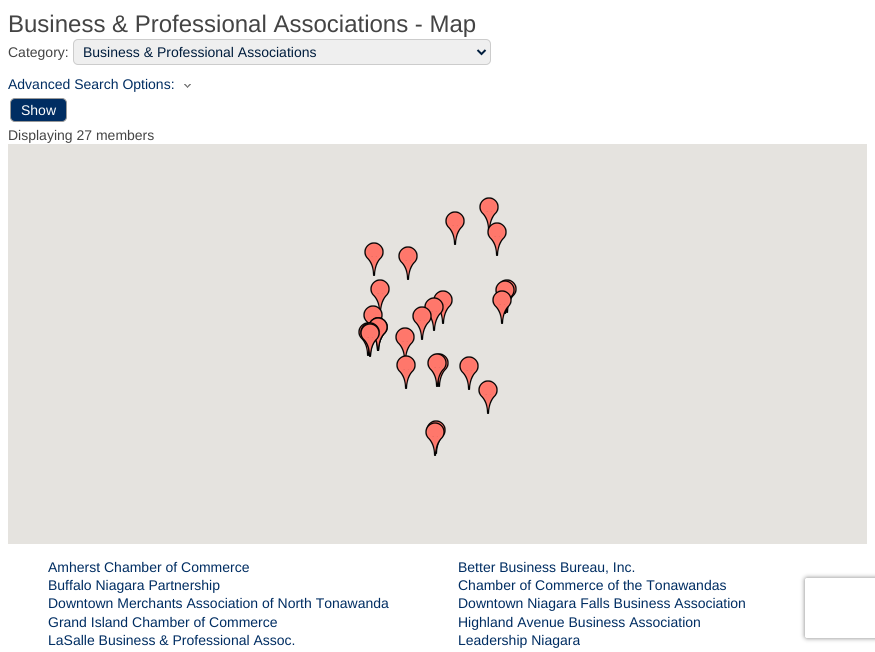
#include <cairo.h>
#include <math.h>
#include <stddef.h>


static void round_rect(cairo_t *cr, double x, double y, double w, double h, double r) {
    cairo_new_sub_path(cr);
    cairo_arc(cr, x + w - r, y + h - r, r, 0, M_PI / 2);
    cairo_arc(cr, x + r, y + h - r, r, M_PI / 2, M_PI);
    cairo_arc(cr, x + r, y + r, r, M_PI, 1.5 * M_PI);
    cairo_arc(cr, x + w - r, y + r, r, 1.5 * M_PI, 2 * M_PI);
    cairo_close_path(cr);
}

static void shadow(cairo_t *cr, double x, double y, double w, double h, double r, double blur, double alpha) {
    cairo_push_group_with_content(cr, CAIRO_CONTENT_ALPHA);
    cairo_set_operator(cr, CAIRO_OPERATOR_SOURCE);
    for (int i = 15; i >= -15 && fmin(w, h) + blur * i / 3 > 0; i -= 2) {
        double e = blur * i / 6;
        cairo_set_source_rgba(cr, 0, 0, 0, alpha * erfc((i - 1) / 8.5) / 2);
        round_rect(cr, x - e, y - e, w + 2 * e, h + 2 * e, fmax(0, fmin(r + e + blur * .6, fmin(w, h) / 2 + e)));
        cairo_fill(cr);
    }
    cairo_pattern_t *soft = cairo_pop_group(cr);
    cairo_mask(cr, soft);
    cairo_pattern_destroy(soft);
}

static void picture(cairo_t *cr, const char *path, double x, double y, double w, double h) {
    cairo_surface_t *image = cairo_image_surface_create_from_png(path);
    cairo_save(cr);
    cairo_set_source_surface(cr, image, x, y);
    cairo_rectangle(cr, x, y, w, h);
    cairo_fill(cr);
    cairo_restore(cr);
    cairo_surface_destroy(image);
}

int main(void) {
    cairo_surface_t *surface = cairo_image_surface_create(CAIRO_FORMAT_RGB24, 875, 652);
    cairo_t *cr = cairo_create(surface);
    cairo_font_options_t *options = cairo_font_options_create();
    cairo_font_options_set_hint_metrics(options, CAIRO_HINT_METRICS_OFF);
    cairo_font_options_set_hint_style(options, CAIRO_HINT_STYLE_NONE);
    cairo_set_font_options(cr, options);
    cairo_set_miter_limit(cr, 4);
    cairo_set_source_rgb(cr, 1, 1, 1);
    cairo_paint(cr);
    cairo_select_font_face(cr, "Liberation Sans", CAIRO_FONT_SLANT_NORMAL, CAIRO_FONT_WEIGHT_NORMAL);
    cairo_set_font_size(cr, 24);
    cairo_set_source_rgb(cr, 0.267, 0.267, 0.267);
    cairo_move_to(cr, 8, 32);
    cairo_show_text(cr, "Business & Professional Associations - Map");
    cairo_set_font_size(cr, 14);
    cairo_move_to(cr, 8, 57);
    cairo_show_text(cr, "Category:");
    cairo_set_source_rgb(cr, 0.937, 0.937, 0.937);
    round_rect(cr, 73.5, 39.5, 417, 25, 4.5);
    cairo_fill_preserve(cr);
    cairo_set_source_rgb(cr, 0.8, 0.8, 0.8);
    cairo_set_line_width(cr, 1);
    cairo_stroke(cr);
    cairo_new_path(cr);
    cairo_move_to(cr, 477.5, 50);
    cairo_line_to(cr, 481.5, 54);
    cairo_line_to(cr, 485.5, 50);
    cairo_set_source_rgb(cr, 0, 0.114, 0.239);
    cairo_set_line_width(cr, 2);
    cairo_stroke(cr);
    cairo_move_to(cr, 83, 57);
    cairo_show_text(cr, "Business & Professional Associations");
    cairo_set_source_rgb(cr, 0, 0.176, 0.384);
    cairo_move_to(cr, 8, 89);
    cairo_show_text(cr, "Advanced Search Options:");
    picture(cr, "img1.png", 184, 84, 7, 4);
    round_rect(cr, 10.5, 98.5, 56, 23, 4.5);
    cairo_fill_preserve(cr);
    cairo_set_source_rgb(cr, 0.6, 0.6, 0.6);
    cairo_set_line_width(cr, 1);
    cairo_stroke(cr);
    cairo_set_source_rgb(cr, 1, 1, 1);
    cairo_move_to(cr, 21, 115);
    cairo_show_text(cr, "Show");
    cairo_set_source_rgb(cr, 0.267, 0.267, 0.267);
    cairo_move_to(cr, 8, 140);
    cairo_show_text(cr, "Displaying 27 members");
    cairo_set_source_rgb(cr, 0.898, 0.89, 0.875);
    cairo_rectangle(cr, 8, 144, 859, 400);
    cairo_fill(cr);
    picture(cr, "img2.png", 445, 211, 20, 34);
    picture(cr, "img2.png", 479, 197, 20, 34);
    picture(cr, "img2.png", 364, 242, 20, 34);
    picture(cr, "img2.png", 398, 246, 20, 34);
    picture(cr, "img3.png", 487, 222, 20, 34);
    picture(cr, "img4.png", 370, 279, 20, 33);
    picture(cr, "img5.png", 498, 279, 19, 34);
    picture(cr, "img2.png", 433, 290, 20, 34);
    picture(cr, "img6.png", 495, 280, 20, 34);
    picture(cr, "img7.png", 363, 305, 20, 18);
    picture(cr, "img9.png", 424, 297, 20, 34);
    picture(cr, "img8.png", 412, 306, 20, 34);
    picture(cr, "img10.png", 492, 290, 20, 34);
    picture(cr, "img11.png", 369, 317, 19, 34);
    picture(cr, "img12.png", 369, 317, 19, 34);
    picture(cr, "img14.png", 369, 317, 19, 34);
    picture(cr, "img13.png", 358, 322, 16, 34);
    picture(cr, "img15.png", 360, 322, 20, 34);
    picture(cr, "img16.png", 360, 323, 20, 34);
    picture(cr, "img17.png", 395, 327, 20, 29);
    picture(cr, "img20.png", 433, 353, 16, 34);
    picture(cr, "img18.png", 427, 353, 20, 34);
    picture(cr, "img19.png", 396, 355, 20, 34);
    picture(cr, "img2.png", 459, 356, 20, 34);
    picture(cr, "img2.png", 478, 380, 20, 34);
    picture(cr, "img2.png", 426, 420, 20, 34);
    picture(cr, "img21.png", 425, 422, 20, 34);
    cairo_set_source_rgb(cr, 0, 0.176, 0.384);
    cairo_move_to(cr, 48, 572);
    cairo_show_text(cr, "Amherst Chamber of Commerce");
    cairo_move_to(cr, 458, 572);
    cairo_show_text(cr, "Better Business Bureau, Inc.");
    cairo_move_to(cr, 48, 590);
    cairo_show_text(cr, "Buffalo Niagara Partnership");
    cairo_move_to(cr, 458, 590);
    cairo_show_text(cr, "Chamber of Commerce of the Tonawandas");
    cairo_move_to(cr, 48, 608);
    cairo_show_text(cr, "Downtown Merchants Association of North Tonawanda");
    cairo_move_to(cr, 458, 608);
    cairo_show_text(cr, "Downtown Niagara Falls Business Association");
    cairo_move_to(cr, 48, 627);
    cairo_show_text(cr, "Grand Island Chamber of Commerce");
    cairo_move_to(cr, 458, 627);
    cairo_show_text(cr, "Highland Avenue Business Association");
    cairo_move_to(cr, 48, 645);
    cairo_show_text(cr, "LaSalle Business & Professional Assoc.");
    cairo_move_to(cr, 458, 645);
    cairo_show_text(cr, "Leadership Niagara");
    cairo_save(cr);
    cairo_set_fill_rule(cr, CAIRO_FILL_RULE_EVEN_ODD);
    cairo_new_path(cr);
    cairo_move_to(cr, 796, 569);
    cairo_line_to(cr, 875, 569);
    cairo_line_to(cr, 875, 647);
    cairo_line_to(cr, 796, 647);
    cairo_close_path(cr);
    cairo_move_to(cr, 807, 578);
    cairo_line_to(cr, 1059, 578);
    cairo_curve_to(cr, 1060, 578, 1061, 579, 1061, 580);
    cairo_line_to(cr, 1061, 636);
    cairo_curve_to(cr, 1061, 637, 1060, 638, 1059, 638);
    cairo_line_to(cr, 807, 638);
    cairo_curve_to(cr, 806, 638, 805, 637, 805, 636);
    cairo_line_to(cr, 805, 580);
    cairo_curve_to(cr, 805, 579, 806, 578, 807, 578);
    cairo_close_path(cr);
    cairo_clip(cr);
    cairo_set_source_rgb(cr, 0.502, 0.502, 0.502);
    shadow(cr, 805, 578, 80, 60, 2, 2.5, 1);
    cairo_restore(cr);
    cairo_surface_write_to_png(surface, "page.png");
    cairo_font_options_destroy(options);
    cairo_destroy(cr);
    cairo_surface_destroy(surface);
    return 0;
}
